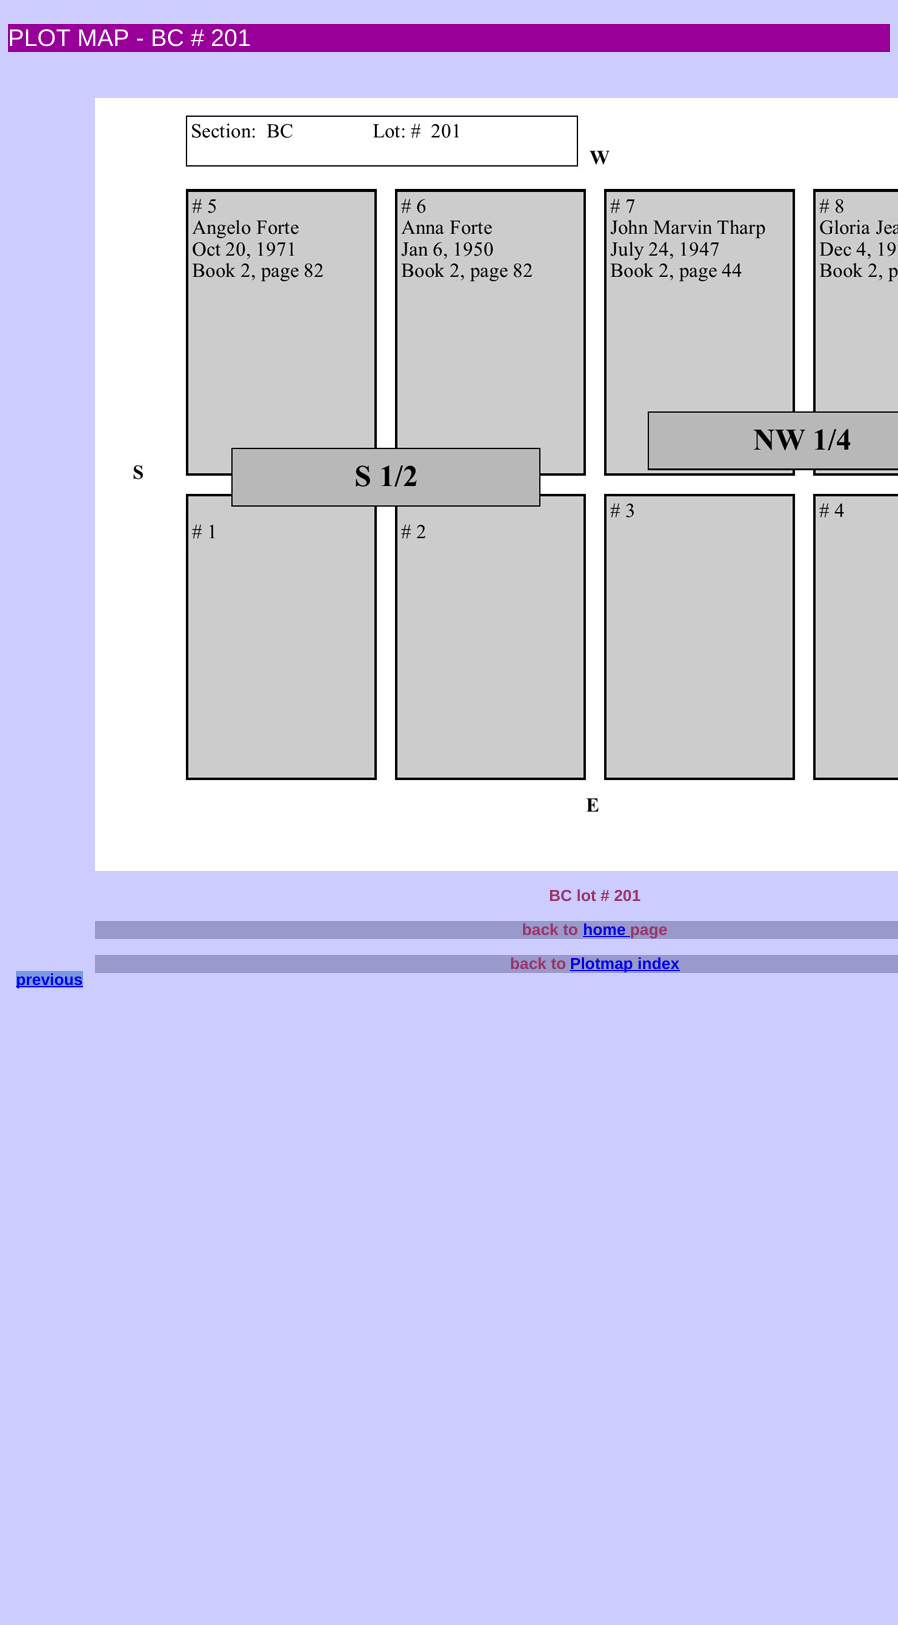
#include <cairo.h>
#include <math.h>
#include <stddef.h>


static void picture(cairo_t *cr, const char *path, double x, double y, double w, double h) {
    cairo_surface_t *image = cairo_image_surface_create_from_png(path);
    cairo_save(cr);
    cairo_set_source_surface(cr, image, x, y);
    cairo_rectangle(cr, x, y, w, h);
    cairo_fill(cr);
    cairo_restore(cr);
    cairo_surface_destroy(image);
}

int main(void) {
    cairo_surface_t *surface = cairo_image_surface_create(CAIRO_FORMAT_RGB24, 898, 1625);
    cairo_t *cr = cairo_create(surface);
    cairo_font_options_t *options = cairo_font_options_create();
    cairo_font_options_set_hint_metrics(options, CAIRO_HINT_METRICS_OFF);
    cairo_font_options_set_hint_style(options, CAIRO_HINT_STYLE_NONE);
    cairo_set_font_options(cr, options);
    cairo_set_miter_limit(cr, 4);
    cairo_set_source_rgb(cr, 0.8, 0.8, 1);
    cairo_paint(cr);
    cairo_set_source_rgb(cr, 0.6, 0, 0.6);
    cairo_rectangle(cr, 8, 24, 882, 28);
    cairo_fill(cr);
    cairo_select_font_face(cr, "Liberation Sans", CAIRO_FONT_SLANT_NORMAL, CAIRO_FONT_WEIGHT_NORMAL);
    cairo_set_font_size(cr, 24);
    cairo_set_source_rgb(cr, 1, 1, 1);
    cairo_move_to(cr, 8, 46);
    cairo_show_text(cr, "PLOT MAP - BC # 201");
    picture(cr, "img1.png", 95, 98, 803, 773);
    cairo_select_font_face(cr, "Liberation Sans", CAIRO_FONT_SLANT_NORMAL, CAIRO_FONT_WEIGHT_BOLD);
    cairo_set_font_size(cr, 16);
    cairo_set_source_rgb(cr, 0.6, 0.2, 0.4);
    cairo_move_to(cr, 549, 901);
    cairo_show_text(cr, "BC lot # 201");
    cairo_set_source_rgb(cr, 0.6, 0.6, 0.8);
    cairo_rectangle(cr, 95, 921, 803, 18);
    cairo_fill(cr);
    cairo_set_source_rgb(cr, 0.6, 0.2, 0.4);
    cairo_move_to(cr, 522, 935);
    cairo_show_text(cr, "back to");
    cairo_set_source_rgb(cr, 0, 0, 0.933);
    cairo_move_to(cr, 583, 935);
    cairo_show_text(cr, "home");
    cairo_rectangle(cr, 583, 936, 47, 1);
    cairo_fill(cr);
    cairo_set_source_rgb(cr, 0.6, 0.2, 0.4);
    cairo_move_to(cr, 630, 935);
    cairo_show_text(cr, "page");
    cairo_set_source_rgb(cr, 0.6, 0.6, 0.8);
    cairo_rectangle(cr, 95, 955, 803, 18);
    cairo_fill(cr);
    cairo_set_source_rgb(cr, 0.6, 0.2, 0.4);
    cairo_move_to(cr, 510, 969);
    cairo_show_text(cr, "back to");
    cairo_set_source_rgb(cr, 0, 0, 0.933);
    cairo_rectangle(cr, 570, 970, 110, 1);
    cairo_fill(cr);
    cairo_move_to(cr, 570, 969);
    cairo_show_text(cr, "Plotmap index");
    cairo_set_source_rgb(cr, 0.482, 0.6, 0.882);
    cairo_rectangle(cr, 16, 971, 67, 17);
    cairo_fill(cr);
    cairo_set_source_rgb(cr, 0, 0, 0.933);
    cairo_rectangle(cr, 16, 986, 67, 1);
    cairo_fill(cr);
    cairo_move_to(cr, 16, 985);
    cairo_show_text(cr, "previous");
    cairo_surface_write_to_png(surface, "page.png");
    cairo_font_options_destroy(options);
    cairo_destroy(cr);
    cairo_surface_destroy(surface);
    return 0;
}
